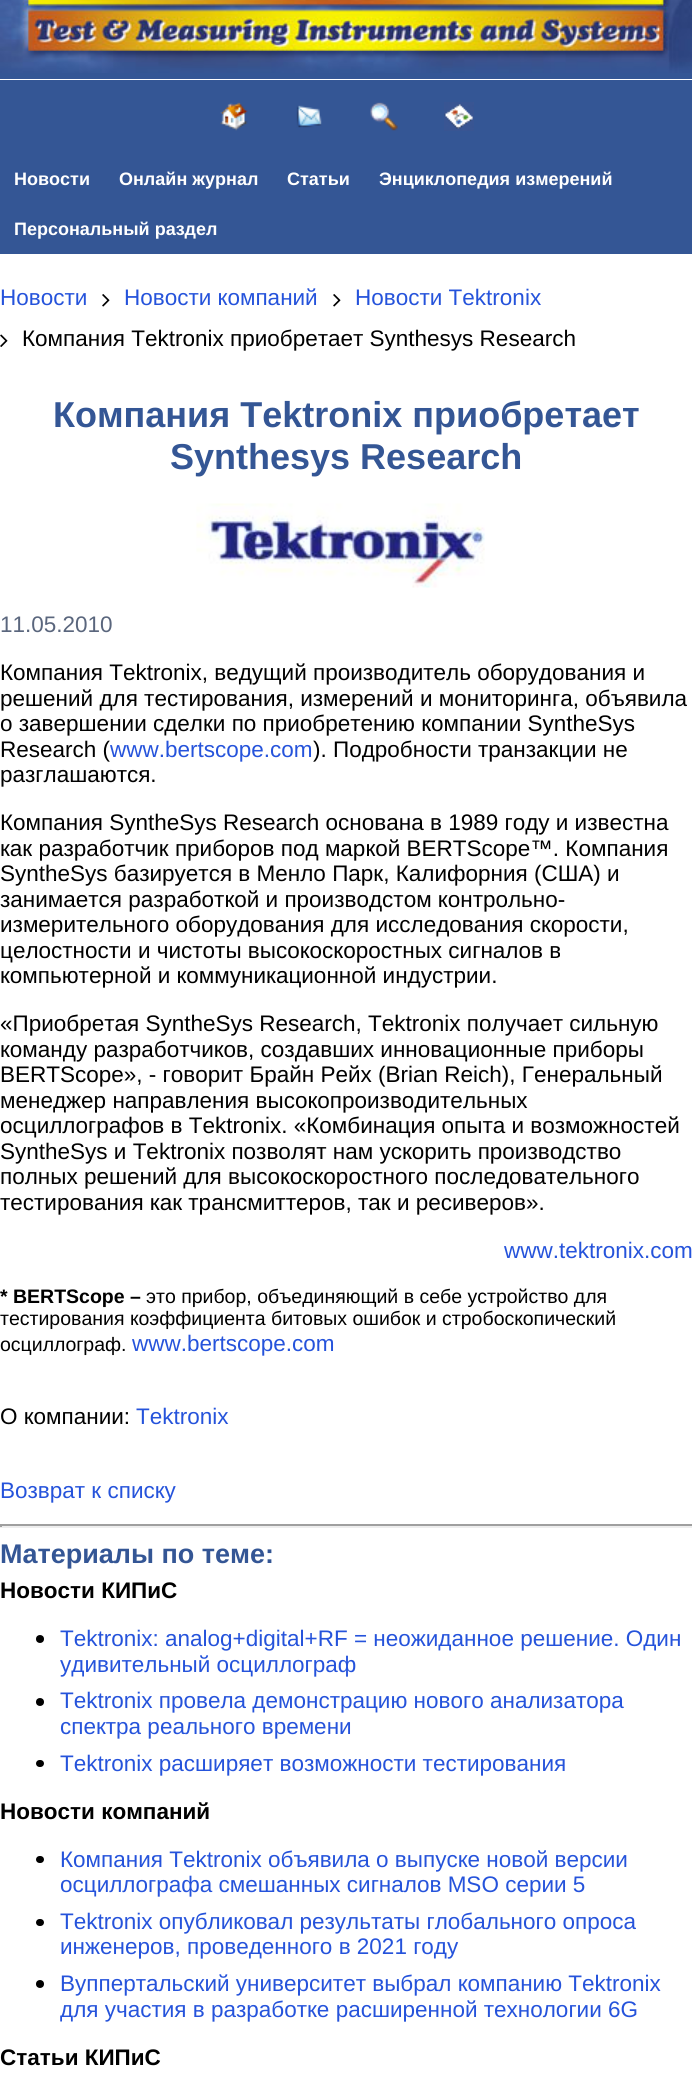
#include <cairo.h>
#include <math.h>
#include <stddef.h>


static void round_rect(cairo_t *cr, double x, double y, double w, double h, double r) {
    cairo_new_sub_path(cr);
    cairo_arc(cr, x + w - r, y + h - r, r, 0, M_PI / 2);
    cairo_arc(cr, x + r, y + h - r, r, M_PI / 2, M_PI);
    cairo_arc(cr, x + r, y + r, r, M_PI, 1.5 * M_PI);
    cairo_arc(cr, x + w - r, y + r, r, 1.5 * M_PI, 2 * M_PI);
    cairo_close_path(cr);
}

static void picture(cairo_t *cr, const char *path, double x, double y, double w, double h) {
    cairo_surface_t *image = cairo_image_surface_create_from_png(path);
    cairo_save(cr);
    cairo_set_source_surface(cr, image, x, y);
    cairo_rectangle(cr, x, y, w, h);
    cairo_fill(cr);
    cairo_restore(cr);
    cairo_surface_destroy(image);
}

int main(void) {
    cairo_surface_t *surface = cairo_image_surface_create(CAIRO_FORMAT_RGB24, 692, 2081);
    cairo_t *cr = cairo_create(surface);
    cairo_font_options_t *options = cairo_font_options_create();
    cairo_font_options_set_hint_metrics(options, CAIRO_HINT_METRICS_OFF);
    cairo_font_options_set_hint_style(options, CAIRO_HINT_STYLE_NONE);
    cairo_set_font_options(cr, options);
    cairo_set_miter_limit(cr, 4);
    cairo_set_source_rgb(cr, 1, 1, 1);
    cairo_paint(cr);
    cairo_set_source_rgb(cr, 0.204, 0.337, 0.584);
    cairo_rectangle(cr, 0, 73, 692, 6);
    cairo_fill(cr);
    picture(cr, "img1.png", 0, 0, 692, 73);
    cairo_rectangle(cr, 0, 80, 692, 174);
    cairo_fill(cr);
    picture(cr, "img2.png", 220, 102, 28, 29);
    picture(cr, "img3.png", 296, 105, 26, 23);
    picture(cr, "img4.png", 370, 102, 28, 29);
    picture(cr, "img5.png", 444, 102, 30, 29);
    cairo_select_font_face(cr, "Liberation Sans", CAIRO_FONT_SLANT_NORMAL, CAIRO_FONT_WEIGHT_BOLD);
    cairo_set_font_size(cr, 18);
    cairo_set_source_rgb(cr, 1, 1, 1);
    cairo_move_to(cr, 14, 185);
    cairo_show_text(cr, "Новости");
    cairo_move_to(cr, 119, 185);
    cairo_show_text(cr, "Онлайн журнал");
    cairo_move_to(cr, 287, 185);
    cairo_show_text(cr, "Статьи");
    cairo_move_to(cr, 379, 185);
    cairo_show_text(cr, "Энциклопедия измерений");
    cairo_move_to(cr, 14, 235);
    cairo_show_text(cr, "Персональный раздел");
    cairo_select_font_face(cr, "Liberation Sans", CAIRO_FONT_SLANT_NORMAL, CAIRO_FONT_WEIGHT_NORMAL);
    cairo_set_font_size(cr, 22.5);
    cairo_set_source_rgb(cr, 0.145, 0.325, 0.859);
    cairo_move_to(cr, 0, 305);
    cairo_show_text(cr, "Новости");
    picture(cr, "img6.png", 102, 294, 8, 13);
    cairo_move_to(cr, 124, 305);
    cairo_show_text(cr, "Новости компаний");
    picture(cr, "img6.png", 333, 294, 8, 13);
    cairo_move_to(cr, 355, 305);
    cairo_show_text(cr, "Новости Tektronix");
    picture(cr, "img7.png", 0, 334, 8, 13);
    cairo_set_source_rgb(cr, 0, 0, 0);
    cairo_move_to(cr, 22, 346);
    cairo_show_text(cr, "Компания Tektronix приобретает Synthesys Research");
    cairo_select_font_face(cr, "Liberation Sans", CAIRO_FONT_SLANT_NORMAL, CAIRO_FONT_WEIGHT_BOLD);
    cairo_set_font_size(cr, 36);
    cairo_set_source_rgb(cr, 0.204, 0.337, 0.584);
    cairo_move_to(cr, 53, 427);
    cairo_show_text(cr, "Компания Tektronix приобретает");
    cairo_move_to(cr, 170, 469);
    cairo_show_text(cr, "Synthesys Research");
    picture(cr, "img8.png", 196, 503, 289, 85);
    cairo_select_font_face(cr, "Liberation Sans", CAIRO_FONT_SLANT_NORMAL, CAIRO_FONT_WEIGHT_NORMAL);
    cairo_set_font_size(cr, 22.5);
    cairo_set_source_rgb(cr, 0.353, 0.4, 0.49);
    cairo_move_to(cr, 0, 632);
    cairo_show_text(cr, "11.05.2010");
    cairo_set_source_rgb(cr, 0, 0, 0);
    cairo_move_to(cr, 0, 680);
    cairo_show_text(cr, "Компания Tektronix, ведущий производитель оборудования и");
    cairo_move_to(cr, 0, 706);
    cairo_show_text(cr, "решений для тестирования, измерений и мониторинга, объявила");
    cairo_move_to(cr, 0, 731);
    cairo_show_text(cr, "о завершении сделки по приобретению компании SyntheSys");
    cairo_move_to(cr, 0, 757);
    cairo_show_text(cr, "Research (");
    cairo_set_source_rgb(cr, 0.145, 0.325, 0.859);
    cairo_move_to(cr, 110, 757);
    cairo_show_text(cr, "www.bertscope.com");
    cairo_set_source_rgb(cr, 0, 0, 0);
    cairo_move_to(cr, 313, 757);
    cairo_show_text(cr, "). Подробности транзакции не");
    cairo_move_to(cr, 0, 782);
    cairo_show_text(cr, "разглашаются.");
    cairo_move_to(cr, 0, 830);
    cairo_show_text(cr, "Компания SyntheSys Research основана в 1989 году и известна");
    cairo_move_to(cr, 0, 856);
    cairo_show_text(cr, "как разработчик приборов под маркой BERTScope™. Компания");
    cairo_move_to(cr, 0, 881);
    cairo_show_text(cr, "SyntheSys базируется в Менло Парк, Калифорния (США) и");
    cairo_move_to(cr, 0, 907);
    cairo_show_text(cr, "занимается разработкой и производстом контрольно-");
    cairo_move_to(cr, 0, 932);
    cairo_show_text(cr, "измерительного оборудования для исследования скорости,");
    cairo_move_to(cr, 0, 958);
    cairo_show_text(cr, "целостности и чистоты высокоскоростных сигналов в");
    cairo_move_to(cr, 0, 983);
    cairo_show_text(cr, "компьютерной и коммуникационной индустрии.");
    cairo_move_to(cr, 0, 1031);
    cairo_show_text(cr, "«Приобретая SyntheSys Research, Tektronix получает сильную");
    cairo_move_to(cr, 0, 1057);
    cairo_show_text(cr, "команду разработчиков, создавших инновационные приборы");
    cairo_move_to(cr, 0, 1082);
    cairo_show_text(cr, "BERTScope», - говорит Брайн Рейх (Brian Reich), Генеральный");
    cairo_move_to(cr, 0, 1108);
    cairo_show_text(cr, "менеджер направления высокопроизводительных");
    cairo_move_to(cr, 0, 1133);
    cairo_show_text(cr, "осциллографов в Tektronix. «Комбинация опыта и возможностей");
    cairo_move_to(cr, 0, 1159);
    cairo_show_text(cr, "SyntheSys и Tektronix позволят нам ускорить производство");
    cairo_move_to(cr, 0, 1184);
    cairo_show_text(cr, "полных решений для высокоскоростного последовательного");
    cairo_move_to(cr, 0, 1210);
    cairo_show_text(cr, "тестирования как трансмиттеров, так и ресиверов».");
    cairo_set_source_rgb(cr, 0.145, 0.325, 0.859);
    cairo_move_to(cr, 504, 1258);
    cairo_show_text(cr, "www.tektronix.com");
    cairo_select_font_face(cr, "Liberation Sans", CAIRO_FONT_SLANT_NORMAL, CAIRO_FONT_WEIGHT_BOLD);
    cairo_set_font_size(cr, 19.5);
    cairo_set_source_rgb(cr, 0, 0, 0);
    cairo_move_to(cr, 0, 1303);
    cairo_show_text(cr, "* BERTScope –");
    cairo_select_font_face(cr, "Liberation Sans", CAIRO_FONT_SLANT_NORMAL, CAIRO_FONT_WEIGHT_NORMAL);
    cairo_move_to(cr, 146, 1303);
    cairo_show_text(cr, "это прибор, объединяющий в себе устройство для");
    cairo_move_to(cr, 0, 1325);
    cairo_show_text(cr, "тестирования коэффициента битовых ошибок и стробоскопический");
    cairo_move_to(cr, 0, 1351);
    cairo_show_text(cr, "осциллограф.");
    cairo_set_font_size(cr, 22.5);
    cairo_set_source_rgb(cr, 0.145, 0.325, 0.859);
    cairo_move_to(cr, 132, 1351);
    cairo_show_text(cr, "www.bertscope.com");
    cairo_set_source_rgb(cr, 0, 0, 0);
    cairo_move_to(cr, 0, 1424);
    cairo_show_text(cr, "О компании:");
    cairo_set_source_rgb(cr, 0.145, 0.325, 0.859);
    cairo_move_to(cr, 136, 1424);
    cairo_show_text(cr, "Tektronix");
    cairo_move_to(cr, 0, 1498);
    cairo_show_text(cr, "Возврат к списку");
    cairo_set_source_rgb(cr, 0.624, 0.624, 0.624);
    cairo_rectangle(cr, 0, 1524, 692, 2);
    cairo_fill(cr);
    cairo_set_source_rgb(cr, 0.933, 0.933, 0.933);
    cairo_rectangle(cr, 0, 1526, 692, 2);
    cairo_fill(cr);
    cairo_set_source_rgb(cr, 0.624, 0.624, 0.624);
    cairo_rectangle(cr, 0, 1524, 2, 3);
    cairo_fill(cr);
    cairo_select_font_face(cr, "Liberation Sans", CAIRO_FONT_SLANT_NORMAL, CAIRO_FONT_WEIGHT_BOLD);
    cairo_set_font_size(cr, 27);
    cairo_set_source_rgb(cr, 0.204, 0.337, 0.584);
    cairo_move_to(cr, 0, 1563);
    cairo_show_text(cr, "Материалы по теме:");
    cairo_set_font_size(cr, 22.5);
    cairo_set_source_rgb(cr, 0, 0, 0);
    cairo_move_to(cr, 0, 1598);
    cairo_show_text(cr, "Новости КИПиС");
    cairo_new_path(cr);
    cairo_arc(cr, 40, 1639, 4, 0, 2 * M_PI);
    cairo_fill(cr);
    cairo_select_font_face(cr, "Liberation Sans", CAIRO_FONT_SLANT_NORMAL, CAIRO_FONT_WEIGHT_NORMAL);
    cairo_set_source_rgb(cr, 0.145, 0.325, 0.859);
    cairo_move_to(cr, 60, 1646);
    cairo_show_text(cr, "Tektronix: analog+digital+RF = неожиданное решение. Один");
    cairo_move_to(cr, 60, 1672);
    cairo_show_text(cr, "удивительный осциллограф");
    cairo_set_source_rgb(cr, 0, 0, 0);
    cairo_new_path(cr);
    cairo_arc(cr, 40, 1702, 4, 0, 2 * M_PI);
    cairo_fill(cr);
    cairo_set_source_rgb(cr, 0.145, 0.325, 0.859);
    cairo_move_to(cr, 60, 1708);
    cairo_show_text(cr, "Tektronix провела демонстрацию нового анализатора");
    cairo_move_to(cr, 60, 1734);
    cairo_show_text(cr, "спектра реального времени");
    cairo_set_source_rgb(cr, 0, 0, 0);
    round_rect(cr, 36, 1760, 8, 7, 3.5);
    cairo_fill(cr);
    cairo_set_source_rgb(cr, 0.145, 0.325, 0.859);
    cairo_move_to(cr, 60, 1771);
    cairo_show_text(cr, "Tektronix расширяет возможности тестирования");
    cairo_select_font_face(cr, "Liberation Sans", CAIRO_FONT_SLANT_NORMAL, CAIRO_FONT_WEIGHT_BOLD);
    cairo_set_source_rgb(cr, 0, 0, 0);
    cairo_move_to(cr, 0, 1819);
    cairo_show_text(cr, "Новости компаний");
    round_rect(cr, 36, 1856, 8, 7, 3.5);
    cairo_fill(cr);
    cairo_select_font_face(cr, "Liberation Sans", CAIRO_FONT_SLANT_NORMAL, CAIRO_FONT_WEIGHT_NORMAL);
    cairo_set_source_rgb(cr, 0.145, 0.325, 0.859);
    cairo_move_to(cr, 60, 1867);
    cairo_show_text(cr, "Компания Tektronix объявила о выпуске новой версии");
    cairo_move_to(cr, 60, 1892);
    cairo_show_text(cr, "осциллографа смешанных сигналов MSO серии 5");
    cairo_set_source_rgb(cr, 0, 0, 0);
    round_rect(cr, 36, 1919, 8, 7, 3.5);
    cairo_fill(cr);
    cairo_set_source_rgb(cr, 0.145, 0.325, 0.859);
    cairo_move_to(cr, 60, 1929);
    cairo_show_text(cr, "Tektronix опубликовал результаты глобального опроса");
    cairo_move_to(cr, 60, 1954);
    cairo_show_text(cr, "инженеров, проведенного в 2021 году");
    cairo_set_source_rgb(cr, 0, 0, 0);
    cairo_new_path(cr);
    cairo_arc(cr, 40, 1984, 4, 0, 2 * M_PI);
    cairo_fill(cr);
    cairo_set_source_rgb(cr, 0.145, 0.325, 0.859);
    cairo_move_to(cr, 60, 1991);
    cairo_show_text(cr, "Вуппертальский университет выбрал компанию Tektronix");
    cairo_move_to(cr, 60, 2017);
    cairo_show_text(cr, "для участия в разработке расширенной технологии 6G");
    cairo_select_font_face(cr, "Liberation Sans", CAIRO_FONT_SLANT_NORMAL, CAIRO_FONT_WEIGHT_BOLD);
    cairo_set_source_rgb(cr, 0, 0, 0);
    cairo_move_to(cr, 0, 2065);
    cairo_show_text(cr, "Статьи КИПиС");
    cairo_surface_write_to_png(surface, "page.png");
    cairo_font_options_destroy(options);
    cairo_destroy(cr);
    cairo_surface_destroy(surface);
    return 0;
}
